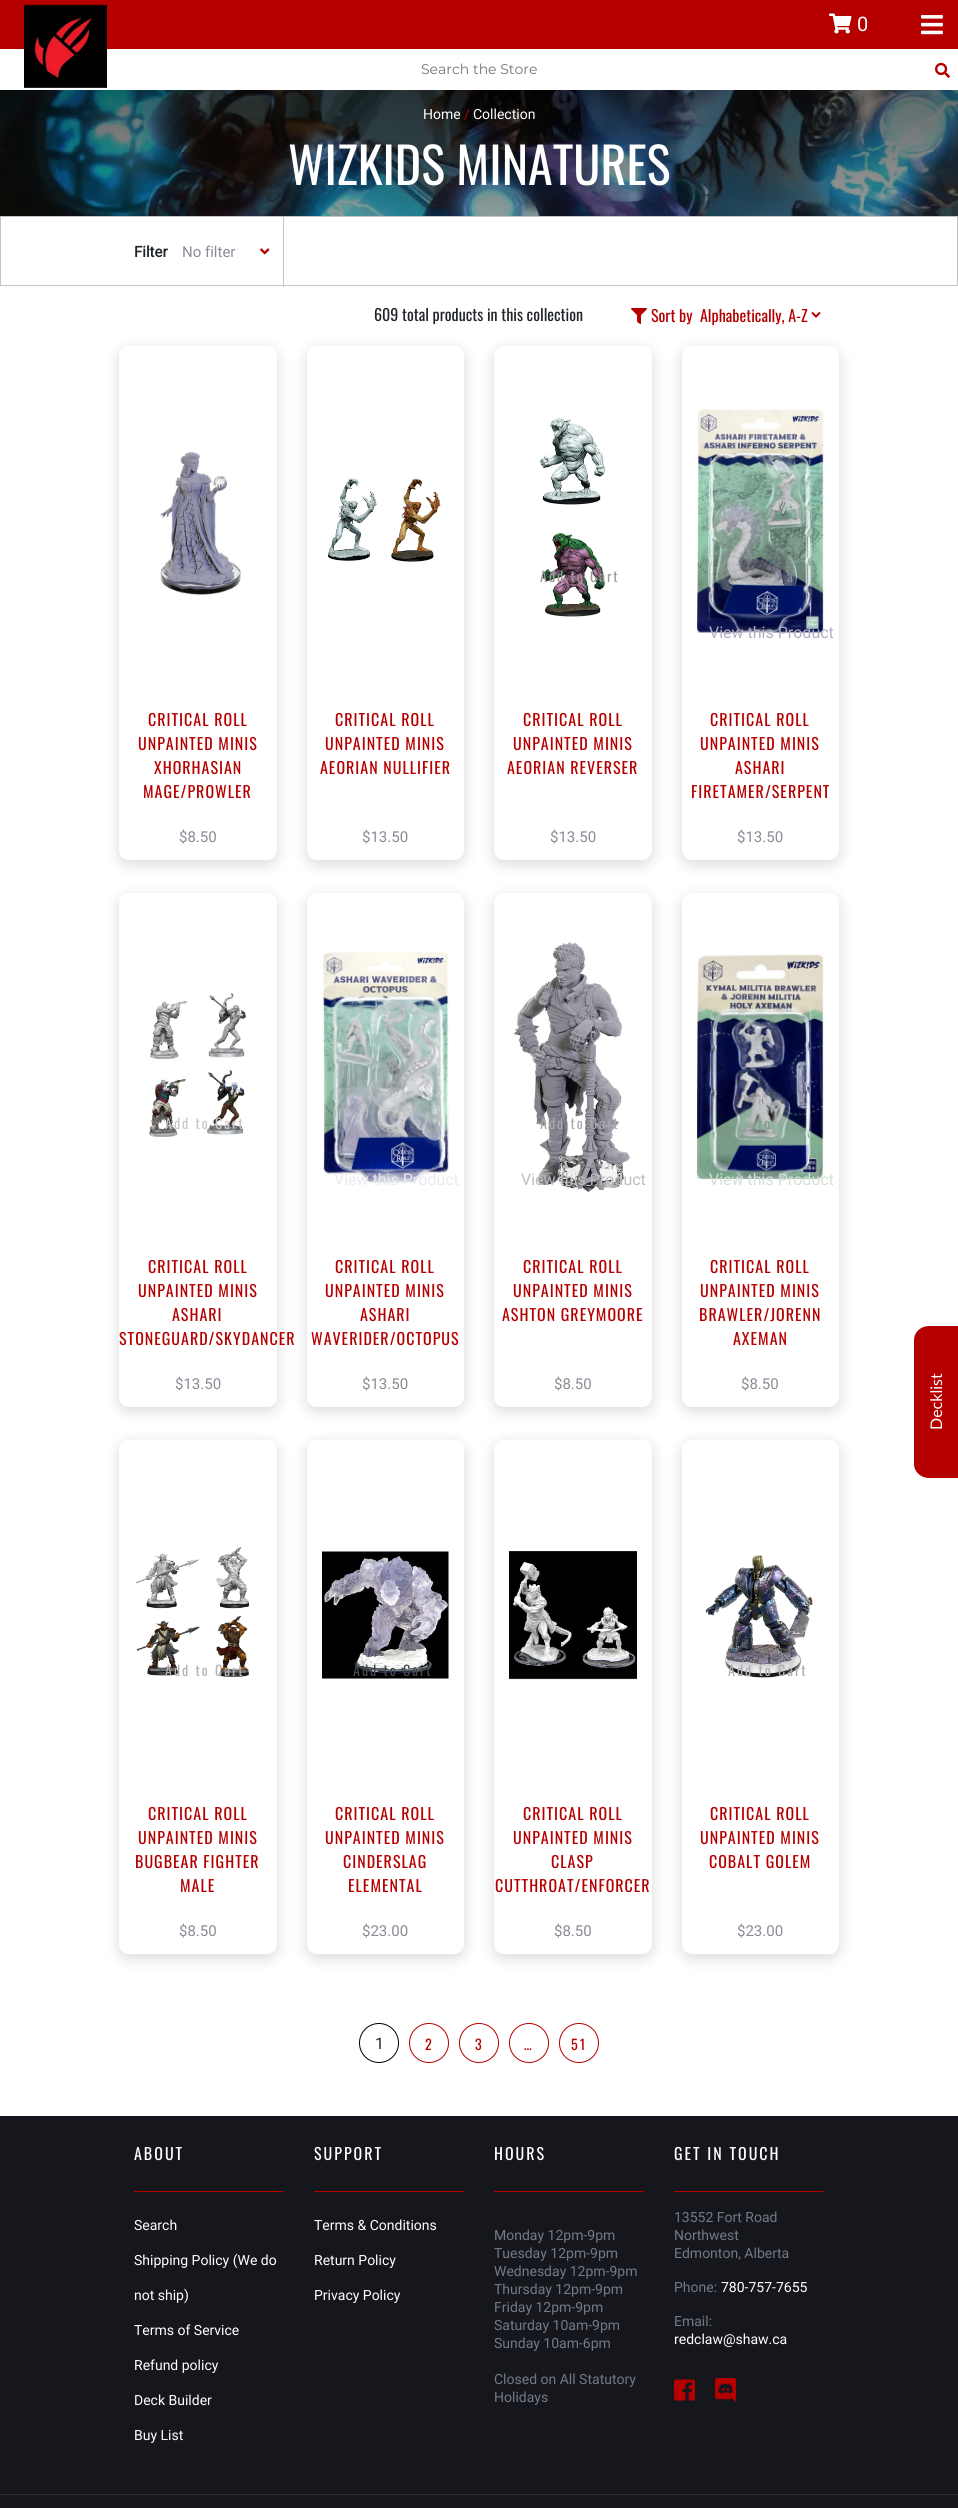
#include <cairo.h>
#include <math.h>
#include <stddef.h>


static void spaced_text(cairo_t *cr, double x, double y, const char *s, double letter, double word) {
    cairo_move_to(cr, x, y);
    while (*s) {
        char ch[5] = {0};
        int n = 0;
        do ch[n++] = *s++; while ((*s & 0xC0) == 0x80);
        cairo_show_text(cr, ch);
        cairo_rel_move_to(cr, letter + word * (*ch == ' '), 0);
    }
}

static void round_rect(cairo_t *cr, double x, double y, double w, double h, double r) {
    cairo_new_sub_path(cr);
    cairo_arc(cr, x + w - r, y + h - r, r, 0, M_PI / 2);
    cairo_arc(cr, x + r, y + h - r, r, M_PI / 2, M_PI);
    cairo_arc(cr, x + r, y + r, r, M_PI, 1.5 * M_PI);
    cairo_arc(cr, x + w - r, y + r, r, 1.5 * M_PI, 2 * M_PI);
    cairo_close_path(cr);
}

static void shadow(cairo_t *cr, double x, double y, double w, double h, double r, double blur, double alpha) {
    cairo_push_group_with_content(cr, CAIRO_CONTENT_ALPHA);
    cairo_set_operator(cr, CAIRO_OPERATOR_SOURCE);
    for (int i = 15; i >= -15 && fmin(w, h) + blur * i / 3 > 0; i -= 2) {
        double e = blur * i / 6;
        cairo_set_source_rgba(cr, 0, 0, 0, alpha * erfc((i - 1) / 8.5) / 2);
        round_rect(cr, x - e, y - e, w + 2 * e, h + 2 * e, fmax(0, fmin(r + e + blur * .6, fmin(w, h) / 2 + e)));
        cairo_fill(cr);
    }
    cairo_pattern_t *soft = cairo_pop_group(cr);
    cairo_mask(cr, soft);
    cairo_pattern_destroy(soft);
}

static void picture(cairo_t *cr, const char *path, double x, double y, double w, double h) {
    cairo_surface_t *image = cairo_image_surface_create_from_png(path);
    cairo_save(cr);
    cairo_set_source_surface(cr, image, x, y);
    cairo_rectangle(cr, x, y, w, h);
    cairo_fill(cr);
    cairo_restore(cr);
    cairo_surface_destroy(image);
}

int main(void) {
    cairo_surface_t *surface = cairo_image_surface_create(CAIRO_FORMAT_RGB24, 958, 2508);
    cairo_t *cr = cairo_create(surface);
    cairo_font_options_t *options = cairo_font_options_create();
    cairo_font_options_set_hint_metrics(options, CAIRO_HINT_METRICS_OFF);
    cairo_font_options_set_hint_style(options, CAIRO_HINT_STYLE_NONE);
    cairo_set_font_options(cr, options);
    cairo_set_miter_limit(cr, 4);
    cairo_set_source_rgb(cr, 1, 1, 1);
    cairo_paint(cr);
    cairo_set_source_rgb(cr, 0.714, 0, 0);
    cairo_rectangle(cr, 0, 0, 958, 49);
    cairo_fill(cr);
    picture(cr, "img1.png", 24, 4, 83, 84);
    picture(cr, "img2.png", 921, 15, 22, 20);
    picture(cr, "img3.png", 829, 13, 23, 21);
    cairo_select_font_face(cr, "Roboto", CAIRO_FONT_SLANT_NORMAL, CAIRO_FONT_WEIGHT_NORMAL);
    cairo_set_font_size(cr, 20);
    cairo_set_source_rgb(cr, 1, 1, 1);
    cairo_move_to(cr, 857, 31);
    cairo_show_text(cr, "0");
    cairo_select_font_face(cr, "Montserrat", CAIRO_FONT_SLANT_NORMAL, CAIRO_FONT_WEIGHT_NORMAL);
    cairo_set_font_size(cr, 14);
    cairo_set_source_rgb(cr, 0.459, 0.459, 0.459);
    cairo_move_to(cr, 421, 74);
    cairo_show_text(cr, "Search the Store");
    picture(cr, "img4.png", 935, 62, 15, 16);
    picture(cr, "img5.png", 0, 90, 958, 126);
    cairo_select_font_face(cr, "Roboto", CAIRO_FONT_SLANT_NORMAL, CAIRO_FONT_WEIGHT_NORMAL);
    cairo_set_source_rgb(cr, 1, 1, 1);
    cairo_move_to(cr, 423, 119);
    cairo_show_text(cr, "Home");
    cairo_set_source_rgb(cr, 0.714, 0, 0);
    cairo_move_to(cr, 464, 119);
    cairo_show_text(cr, "/");
    cairo_set_source_rgb(cr, 1, 1, 1);
    cairo_move_to(cr, 473, 119);
    cairo_show_text(cr, "Collection");
    cairo_select_font_face(cr, "Oswald", CAIRO_FONT_SLANT_NORMAL, CAIRO_FONT_WEIGHT_NORMAL);
    cairo_set_font_size(cr, 50);
    cairo_move_to(cr, 288, 185);
    cairo_show_text(cr, "WIZKIDS MINATURES");
    cairo_rectangle(cr, 0.5, 216.5, 957, 69);
    cairo_set_source_rgb(cr, 0.769, 0.769, 0.769);
    cairo_set_line_width(cr, 1);
    cairo_stroke(cr);
    cairo_rectangle(cr, 283, 217, 1, 70);
    cairo_fill(cr);
    cairo_select_font_face(cr, "Roboto", CAIRO_FONT_SLANT_NORMAL, CAIRO_FONT_WEIGHT_BOLD);
    cairo_set_font_size(cr, 15);
    cairo_set_source_rgb(cr, 0.129, 0.145, 0.161);
    cairo_move_to(cr, 134, 257);
    cairo_show_text(cr, "Filter");
    cairo_select_font_face(cr, "Roboto", CAIRO_FONT_SLANT_NORMAL, CAIRO_FONT_WEIGHT_NORMAL);
    cairo_set_source_rgb(cr, 0.537, 0.549, 0.584);
    cairo_move_to(cr, 182, 257);
    cairo_show_text(cr, "No filter");
    picture(cr, "img6.png", 260, 248, 10, 7);
    cairo_select_font_face(cr, "Oswald", CAIRO_FONT_SLANT_NORMAL, CAIRO_FONT_WEIGHT_NORMAL);
    cairo_set_font_size(cr, 16);
    cairo_set_source_rgb(cr, 0.129, 0.145, 0.161);
    cairo_move_to(cr, 374, 321);
    cairo_show_text(cr, "609 total products in this collection");
    picture(cr, "img7.png", 631, 308, 16, 16);
    cairo_set_source_rgb(cr, 0.714, 0, 0);
    cairo_move_to(cr, 651, 322);
    cairo_show_text(cr, "Sort by");
    cairo_new_path(cr);
    cairo_move_to(cr, 812, 312.5);
    cairo_line_to(cr, 816, 316.5);
    cairo_line_to(cr, 820, 312.5);
    cairo_set_line_width(cr, 2);
    cairo_stroke(cr);
    cairo_move_to(cr, 700, 322);
    cairo_show_text(cr, "Alphabetically, A-Z");
    cairo_set_source_rgb(cr, 0, 0, 0);
    shadow(cr, 119, 350, 158, 514, 10, 7.5, 0.15);
    cairo_set_source_rgb(cr, 1, 1, 1);
    round_rect(cr, 119, 346, 158, 514, 10);
    cairo_fill(cr);
    picture(cr, "img8.png", 160, 452, 81, 143);
    cairo_set_source_rgb(cr, 0.714, 0, 0);
    spaced_text(cr, 148, 726, "CRITICAL ROLL", 1, 0);
    spaced_text(cr, 138, 750, "UNPAINTED MINIS", 1, 0);
    spaced_text(cr, 154, 774, "XHORHASIAN", 1, 0);
    spaced_text(cr, 143, 798, "MAGE/PROWLER", 1, 0);
    cairo_select_font_face(cr, "Roboto", CAIRO_FONT_SLANT_NORMAL, CAIRO_FONT_WEIGHT_NORMAL);
    cairo_set_font_size(cr, 15);
    cairo_set_source_rgb(cr, 0.537, 0.549, 0.584);
    cairo_move_to(cr, 179, 842);
    cairo_show_text(cr, "$8.50");
    cairo_set_source_rgb(cr, 0, 0, 0);
    shadow(cr, 307, 350, 157, 514, 10, 7.5, 0.15);
    cairo_set_source_rgb(cr, 1, 1, 1);
    round_rect(cr, 307, 346, 157, 514, 10);
    cairo_fill(cr);
    picture(cr, "img9.png", 327, 478, 114, 84);
    cairo_select_font_face(cr, "Oswald", CAIRO_FONT_SLANT_NORMAL, CAIRO_FONT_WEIGHT_NORMAL);
    cairo_set_font_size(cr, 16);
    cairo_set_source_rgb(cr, 0.714, 0, 0);
    spaced_text(cr, 335, 726, "CRITICAL ROLL", 1, 0);
    spaced_text(cr, 325, 750, "UNPAINTED MINIS", 1, 0);
    spaced_text(cr, 320, 774, "AEORIAN NULLIFIER", 1, 0);
    cairo_select_font_face(cr, "Roboto", CAIRO_FONT_SLANT_NORMAL, CAIRO_FONT_WEIGHT_NORMAL);
    cairo_set_font_size(cr, 15);
    cairo_set_source_rgb(cr, 0.537, 0.549, 0.584);
    cairo_move_to(cr, 362, 842);
    cairo_show_text(cr, "$13.50");
    cairo_set_source_rgb(cr, 0, 0, 0);
    shadow(cr, 494, 350, 158, 514, 10, 7.5, 0.15);
    cairo_set_source_rgb(cr, 1, 1, 1);
    round_rect(cr, 494, 346, 158, 514, 10);
    cairo_fill(cr);
    picture(cr, "img10.png", 539, 418, 67, 199);
    cairo_select_font_face(cr, "Oswald", CAIRO_FONT_SLANT_NORMAL, CAIRO_FONT_WEIGHT_NORMAL);
    cairo_set_font_size(cr, 14);
    cairo_set_source_rgb(cr, 0.616, 0.604, 0.608);
    spaced_text(cr, 540, 582, "Add to Cart", 2, 0);
    cairo_set_font_size(cr, 16);
    cairo_set_source_rgb(cr, 0.714, 0, 0);
    spaced_text(cr, 523, 726, "CRITICAL ROLL", 1, 0);
    spaced_text(cr, 513, 750, "UNPAINTED MINIS", 1, 0);
    spaced_text(cr, 507, 774, "AEORIAN REVERSER", 1, 0);
    cairo_select_font_face(cr, "Roboto", CAIRO_FONT_SLANT_NORMAL, CAIRO_FONT_WEIGHT_NORMAL);
    cairo_set_font_size(cr, 15);
    cairo_set_source_rgb(cr, 0.537, 0.549, 0.584);
    cairo_move_to(cr, 550, 842);
    cairo_show_text(cr, "$13.50");
    cairo_set_source_rgb(cr, 0, 0, 0);
    shadow(cr, 682, 350, 157, 514, 10, 7.5, 0.15);
    cairo_set_source_rgb(cr, 1, 1, 1);
    round_rect(cr, 682, 346, 157, 514, 10);
    cairo_fill(cr);
    picture(cr, "img11.png", 697, 409, 127, 225);
    cairo_select_font_face(cr, "Oswald", CAIRO_FONT_SLANT_NORMAL, CAIRO_FONT_WEIGHT_NORMAL);
    cairo_set_font_size(cr, 14);
    cairo_set_source_rgb(cr, 0.537, 0.549, 0.584);
    spaced_text(cr, 787, 582, "a", 2, 0);
    cairo_select_font_face(cr, "Roboto", CAIRO_FONT_SLANT_NORMAL, CAIRO_FONT_WEIGHT_NORMAL);
    cairo_set_font_size(cr, 16);
    cairo_set_source_rgb(cr, 0.682, 0.694, 0.761);
    cairo_move_to(cr, 709, 638);
    cairo_show_text(cr, "View this Product");
    cairo_select_font_face(cr, "Oswald", CAIRO_FONT_SLANT_NORMAL, CAIRO_FONT_WEIGHT_NORMAL);
    cairo_set_source_rgb(cr, 0.714, 0, 0);
    spaced_text(cr, 710, 726, "CRITICAL ROLL", 1, 0);
    spaced_text(cr, 700, 750, "UNPAINTED MINIS", 1, 0);
    spaced_text(cr, 735, 774, "ASHARI", 1, 0);
    spaced_text(cr, 691, 798, "FIRETAMER/SERPENT", 1, 0);
    cairo_select_font_face(cr, "Roboto", CAIRO_FONT_SLANT_NORMAL, CAIRO_FONT_WEIGHT_NORMAL);
    cairo_set_font_size(cr, 15);
    cairo_set_source_rgb(cr, 0.537, 0.549, 0.584);
    cairo_move_to(cr, 737, 842);
    cairo_show_text(cr, "$13.50");
    cairo_set_source_rgb(cr, 0, 0, 0);
    shadow(cr, 119, 897, 158, 514, 10, 7.5, 0.15);
    cairo_set_source_rgb(cr, 1, 1, 1);
    round_rect(cr, 119, 893, 158, 514, 10);
    cairo_fill(cr);
    picture(cr, "img12.png", 149, 992, 97, 145);
    cairo_select_font_face(cr, "Oswald", CAIRO_FONT_SLANT_NORMAL, CAIRO_FONT_WEIGHT_BOLD);
    cairo_set_font_size(cr, 18);
    cairo_set_source_rgb(cr, 0.455, 0.424, 0.404);
    spaced_text(cr, 151, 1129, "+", 2, 0);
    cairo_select_font_face(cr, "Oswald", CAIRO_FONT_SLANT_NORMAL, CAIRO_FONT_WEIGHT_NORMAL);
    cairo_set_font_size(cr, 14);
    cairo_set_source_rgb(cr, 0.788, 0.784, 0.784);
    spaced_text(cr, 165, 1129, "Add to Cart", 2, 0);
    cairo_set_font_size(cr, 16);
    cairo_set_source_rgb(cr, 0.714, 0, 0);
    spaced_text(cr, 148, 1273, "CRITICAL ROLL", 1, 0);
    spaced_text(cr, 138, 1297, "UNPAINTED MINIS", 1, 0);
    spaced_text(cr, 172, 1321, "ASHARI", 1, 0);
    spaced_text(cr, 119, 1345, "STONEGUARD/SKYDANCER", 1, 0);
    cairo_select_font_face(cr, "Roboto", CAIRO_FONT_SLANT_NORMAL, CAIRO_FONT_WEIGHT_NORMAL);
    cairo_set_font_size(cr, 15);
    cairo_set_source_rgb(cr, 0.537, 0.549, 0.584);
    cairo_move_to(cr, 175, 1389);
    cairo_show_text(cr, "$13.50");
    cairo_set_source_rgb(cr, 0, 0, 0);
    shadow(cr, 307, 897, 157, 514, 10, 7.5, 0.15);
    cairo_set_source_rgb(cr, 1, 1, 1);
    round_rect(cr, 307, 893, 157, 514, 10);
    cairo_fill(cr);
    picture(cr, "img13.png", 322, 952, 127, 232);
    cairo_set_font_size(cr, 16);
    cairo_set_source_rgb(cr, 0.914, 0.918, 0.941);
    cairo_move_to(cr, 334, 1185);
    cairo_show_text(cr, "View this Product");
    cairo_select_font_face(cr, "Oswald", CAIRO_FONT_SLANT_NORMAL, CAIRO_FONT_WEIGHT_NORMAL);
    cairo_set_source_rgb(cr, 0.714, 0, 0);
    spaced_text(cr, 335, 1273, "CRITICAL ROLL", 1, 0);
    spaced_text(cr, 325, 1297, "UNPAINTED MINIS", 1, 0);
    spaced_text(cr, 360, 1321, "ASHARI", 1, 0);
    spaced_text(cr, 311, 1345, "WAVERIDER/OCTOPUS", 1, 0);
    cairo_select_font_face(cr, "Roboto", CAIRO_FONT_SLANT_NORMAL, CAIRO_FONT_WEIGHT_NORMAL);
    cairo_set_font_size(cr, 15);
    cairo_set_source_rgb(cr, 0.537, 0.549, 0.584);
    cairo_move_to(cr, 362, 1389);
    cairo_show_text(cr, "$13.50");
    cairo_set_source_rgb(cr, 0, 0, 0);
    shadow(cr, 494, 897, 158, 514, 10, 7.5, 0.15);
    cairo_set_source_rgb(cr, 1, 1, 1);
    round_rect(cr, 494, 893, 158, 514, 10);
    cairo_fill(cr);
    picture(cr, "img14.png", 513, 942, 117, 250);
    cairo_select_font_face(cr, "Oswald", CAIRO_FONT_SLANT_NORMAL, CAIRO_FONT_WEIGHT_NORMAL);
    cairo_set_font_size(cr, 14);
    cairo_set_source_rgb(cr, 0.659, 0.659, 0.682);
    spaced_text(cr, 540, 1129, "Add to Cart", 2, 0);
    cairo_select_font_face(cr, "Roboto", CAIRO_FONT_SLANT_NORMAL, CAIRO_FONT_WEIGHT_NORMAL);
    cairo_set_font_size(cr, 16);
    cairo_set_source_rgb(cr, 0.745, 0.741, 0.749);
    cairo_move_to(cr, 521, 1185);
    cairo_show_text(cr, "View this Product");
    cairo_select_font_face(cr, "Oswald", CAIRO_FONT_SLANT_NORMAL, CAIRO_FONT_WEIGHT_NORMAL);
    cairo_set_source_rgb(cr, 0.714, 0, 0);
    spaced_text(cr, 523, 1273, "CRITICAL ROLL", 1, 0);
    spaced_text(cr, 513, 1297, "UNPAINTED MINIS", 1, 0);
    spaced_text(cr, 502, 1321, "ASHTON GREYMOORE", 1, 0);
    cairo_select_font_face(cr, "Roboto", CAIRO_FONT_SLANT_NORMAL, CAIRO_FONT_WEIGHT_NORMAL);
    cairo_set_font_size(cr, 15);
    cairo_set_source_rgb(cr, 0.537, 0.549, 0.584);
    cairo_move_to(cr, 554, 1389);
    cairo_show_text(cr, "$8.50");
    cairo_set_source_rgb(cr, 0, 0, 0);
    shadow(cr, 682, 897, 157, 514, 10, 7.5, 0.15);
    cairo_set_source_rgb(cr, 1, 1, 1);
    round_rect(cr, 682, 893, 157, 514, 10);
    cairo_fill(cr);
    picture(cr, "img15.png", 697, 954, 127, 226);
    cairo_select_font_face(cr, "Oswald", CAIRO_FONT_SLANT_NORMAL, CAIRO_FONT_WEIGHT_NORMAL);
    cairo_set_font_size(cr, 14);
    cairo_set_source_rgb(cr, 0.522, 0.612, 0.58);
    spaced_text(cr, 758, 1129, "to", 2, 0);
    cairo_select_font_face(cr, "Roboto", CAIRO_FONT_SLANT_NORMAL, CAIRO_FONT_WEIGHT_NORMAL);
    cairo_set_font_size(cr, 16);
    cairo_set_source_rgb(cr, 0.831, 0.875, 0.847);
    cairo_move_to(cr, 709, 1185);
    cairo_show_text(cr, "View this Product");
    cairo_select_font_face(cr, "Oswald", CAIRO_FONT_SLANT_NORMAL, CAIRO_FONT_WEIGHT_NORMAL);
    cairo_set_source_rgb(cr, 0.714, 0, 0);
    spaced_text(cr, 710, 1273, "CRITICAL ROLL", 1, 0);
    spaced_text(cr, 700, 1297, "UNPAINTED MINIS", 1, 0);
    spaced_text(cr, 699, 1321, "BRAWLER/JORENN", 1, 0);
    spaced_text(cr, 733, 1345, "AXEMAN", 1, 0);
    cairo_select_font_face(cr, "Roboto", CAIRO_FONT_SLANT_NORMAL, CAIRO_FONT_WEIGHT_NORMAL);
    cairo_set_font_size(cr, 15);
    cairo_set_source_rgb(cr, 0.537, 0.549, 0.584);
    cairo_move_to(cr, 741, 1389);
    cairo_show_text(cr, "$8.50");
    cairo_set_source_rgb(cr, 0, 0, 0);
    shadow(cr, 119, 1444, 158, 514, 10, 7.5, 0.15);
    cairo_set_source_rgb(cr, 1, 1, 1);
    round_rect(cr, 119, 1440, 158, 514, 10);
    cairo_fill(cr);
    picture(cr, "img16.png", 136, 1547, 114, 130);
    cairo_select_font_face(cr, "Oswald", CAIRO_FONT_SLANT_NORMAL, CAIRO_FONT_WEIGHT_NORMAL);
    cairo_set_font_size(cr, 14);
    cairo_set_source_rgb(cr, 0.71, 0.702, 0.698);
    spaced_text(cr, 165, 1676, "Add to Cart", 2, 0);
    cairo_set_font_size(cr, 16);
    cairo_set_source_rgb(cr, 0.714, 0, 0);
    spaced_text(cr, 148, 1820, "CRITICAL ROLL", 1, 0);
    spaced_text(cr, 138, 1844, "UNPAINTED MINIS", 1, 0);
    spaced_text(cr, 135, 1868, "BUGBEAR FIGHTER", 1, 0);
    spaced_text(cr, 180, 1892, "MALE", 1, 0);
    cairo_select_font_face(cr, "Roboto", CAIRO_FONT_SLANT_NORMAL, CAIRO_FONT_WEIGHT_NORMAL);
    cairo_set_font_size(cr, 15);
    cairo_set_source_rgb(cr, 0.537, 0.549, 0.584);
    cairo_move_to(cr, 179, 1936);
    cairo_show_text(cr, "$8.50");
    cairo_set_source_rgb(cr, 0, 0, 0);
    shadow(cr, 307, 1444, 157, 514, 10, 7.5, 0.15);
    cairo_set_source_rgb(cr, 1, 1, 1);
    round_rect(cr, 307, 1440, 157, 514, 10);
    cairo_fill(cr);
    picture(cr, "img17.png", 322, 1551, 127, 128);
    cairo_select_font_face(cr, "Oswald", CAIRO_FONT_SLANT_NORMAL, CAIRO_FONT_WEIGHT_NORMAL);
    cairo_set_font_size(cr, 14);
    cairo_set_source_rgb(cr, 0.267, 0.278, 0.294);
    spaced_text(cr, 353, 1676, "Add to Cart", 2, 0);
    cairo_set_font_size(cr, 16);
    cairo_set_source_rgb(cr, 0.714, 0, 0);
    spaced_text(cr, 335, 1820, "CRITICAL ROLL", 1, 0);
    spaced_text(cr, 325, 1844, "UNPAINTED MINIS", 1, 0);
    spaced_text(cr, 343, 1868, "CINDERSLAG", 1, 0);
    spaced_text(cr, 348, 1892, "ELEMENTAL", 1, 0);
    cairo_select_font_face(cr, "Roboto", CAIRO_FONT_SLANT_NORMAL, CAIRO_FONT_WEIGHT_NORMAL);
    cairo_set_font_size(cr, 15);
    cairo_set_source_rgb(cr, 0.537, 0.549, 0.584);
    cairo_move_to(cr, 362, 1936);
    cairo_show_text(cr, "$23.00");
    cairo_set_source_rgb(cr, 0, 0, 0);
    shadow(cr, 494, 1444, 158, 514, 10, 7.5, 0.15);
    cairo_set_source_rgb(cr, 1, 1, 1);
    round_rect(cr, 494, 1440, 158, 514, 10);
    cairo_fill(cr);
    picture(cr, "img18.png", 509, 1551, 128, 129);
    cairo_select_font_face(cr, "Oswald", CAIRO_FONT_SLANT_NORMAL, CAIRO_FONT_WEIGHT_NORMAL);
    cairo_set_font_size(cr, 16);
    cairo_set_source_rgb(cr, 0.714, 0, 0);
    spaced_text(cr, 523, 1820, "CRITICAL ROLL", 1, 0);
    spaced_text(cr, 513, 1844, "UNPAINTED MINIS", 1, 0);
    spaced_text(cr, 551, 1868, "CLASP", 1, 0);
    spaced_text(cr, 495, 1892, "CUTTHROAT/ENFORCER", 1, 0);
    cairo_select_font_face(cr, "Roboto", CAIRO_FONT_SLANT_NORMAL, CAIRO_FONT_WEIGHT_NORMAL);
    cairo_set_font_size(cr, 15);
    cairo_set_source_rgb(cr, 0.537, 0.549, 0.584);
    cairo_move_to(cr, 554, 1936);
    cairo_show_text(cr, "$8.50");
    cairo_set_source_rgb(cr, 0, 0, 0);
    shadow(cr, 682, 1444, 157, 514, 10, 7.5, 0.15);
    cairo_set_source_rgb(cr, 1, 1, 1);
    round_rect(cr, 682, 1440, 157, 514, 10);
    cairo_fill(cr);
    picture(cr, "img19.png", 705, 1555, 108, 123);
    cairo_select_font_face(cr, "Oswald", CAIRO_FONT_SLANT_NORMAL, CAIRO_FONT_WEIGHT_NORMAL);
    cairo_set_font_size(cr, 14);
    cairo_set_source_rgb(cr, 0.682, 0.682, 0.69);
    spaced_text(cr, 728, 1676, "Add to Cart", 2, 0);
    cairo_set_font_size(cr, 16);
    cairo_set_source_rgb(cr, 0.714, 0, 0);
    spaced_text(cr, 710, 1820, "CRITICAL ROLL", 1, 0);
    spaced_text(cr, 700, 1844, "UNPAINTED MINIS", 1, 0);
    spaced_text(cr, 709, 1868, "COBALT GOLEM", 1, 0);
    cairo_select_font_face(cr, "Roboto", CAIRO_FONT_SLANT_NORMAL, CAIRO_FONT_WEIGHT_NORMAL);
    cairo_set_font_size(cr, 15);
    cairo_set_source_rgb(cr, 0.537, 0.549, 0.584);
    cairo_move_to(cr, 737, 1936);
    cairo_show_text(cr, "$23.00");
    cairo_new_path(cr);
    cairo_arc(cr, 379, 2043, 19.5, 0, 2 * M_PI);
    cairo_set_source_rgb(cr, 0, 0, 0);
    cairo_set_line_width(cr, 1);
    cairo_stroke(cr);
    cairo_set_font_size(cr, 16);
    cairo_set_source_rgb(cr, 0.129, 0.145, 0.161);
    cairo_move_to(cr, 375, 2049);
    cairo_show_text(cr, "1");
    cairo_new_path(cr);
    cairo_arc(cr, 429, 2043, 19.5, 0, 2 * M_PI);
    cairo_set_source_rgb(cr, 0.714, 0, 0);
    cairo_stroke(cr);
    cairo_select_font_face(cr, "Oswald", CAIRO_FONT_SLANT_NORMAL, CAIRO_FONT_WEIGHT_NORMAL);
    cairo_set_font_size(cr, 14);
    spaced_text(cr, 425, 2050, "2", 2, 0);
    cairo_new_path(cr);
    cairo_arc(cr, 479, 2043, 19.5, 0, 2 * M_PI);
    cairo_stroke(cr);
    spaced_text(cr, 475, 2050, "3", 2, 0);
    cairo_new_path(cr);
    cairo_arc(cr, 529, 2043, 19.5, 0, 2 * M_PI);
    cairo_stroke(cr);
    spaced_text(cr, 524, 2050, "…", 2, 0);
    cairo_new_path(cr);
    cairo_arc(cr, 579, 2043, 19.5, 0, 2 * M_PI);
    cairo_stroke(cr);
    spaced_text(cr, 571, 2050, "51", 2, 0);
    cairo_set_source_rgb(cr, 0.086, 0.09, 0.11);
    cairo_rectangle(cr, 0, 2116, 958, 392);
    cairo_fill(cr);
    cairo_set_source_rgb(cr, 0.714, 0, 0);
    cairo_rectangle(cr, 134, 2191, 150, 1);
    cairo_fill(cr);
    cairo_set_font_size(cr, 16);
    cairo_set_source_rgb(cr, 1, 1, 1);
    spaced_text(cr, 134, 2160, "ABOUT", 2, 0);
    cairo_select_font_face(cr, "Roboto", CAIRO_FONT_SLANT_NORMAL, CAIRO_FONT_WEIGHT_NORMAL);
    cairo_set_font_size(cr, 14);
    cairo_move_to(cr, 134, 2230);
    cairo_show_text(cr, "Search");
    cairo_move_to(cr, 134, 2265);
    cairo_show_text(cr, "Shipping Policy (We do");
    cairo_move_to(cr, 134, 2300);
    cairo_show_text(cr, "not ship)");
    cairo_move_to(cr, 134, 2335);
    cairo_show_text(cr, "Terms of Service");
    cairo_move_to(cr, 134, 2370);
    cairo_show_text(cr, "Refund policy");
    cairo_move_to(cr, 134, 2405);
    cairo_show_text(cr, "Deck Builder");
    cairo_move_to(cr, 134, 2440);
    cairo_show_text(cr, "Buy List");
    cairo_set_source_rgb(cr, 0.714, 0, 0);
    cairo_rectangle(cr, 314, 2191, 150, 1);
    cairo_fill(cr);
    cairo_select_font_face(cr, "Oswald", CAIRO_FONT_SLANT_NORMAL, CAIRO_FONT_WEIGHT_NORMAL);
    cairo_set_font_size(cr, 16);
    cairo_set_source_rgb(cr, 1, 1, 1);
    spaced_text(cr, 314, 2160, "SUPPORT", 2, 0);
    cairo_select_font_face(cr, "Roboto", CAIRO_FONT_SLANT_NORMAL, CAIRO_FONT_WEIGHT_NORMAL);
    cairo_set_font_size(cr, 14);
    cairo_move_to(cr, 314, 2230);
    cairo_show_text(cr, "Terms & Conditions");
    cairo_move_to(cr, 314, 2265);
    cairo_show_text(cr, "Return Policy");
    cairo_move_to(cr, 314, 2300);
    cairo_show_text(cr, "Privacy Policy");
    cairo_set_source_rgb(cr, 0.714, 0, 0);
    cairo_rectangle(cr, 494, 2191, 150, 1);
    cairo_fill(cr);
    cairo_select_font_face(cr, "Oswald", CAIRO_FONT_SLANT_NORMAL, CAIRO_FONT_WEIGHT_NORMAL);
    cairo_set_font_size(cr, 16);
    cairo_set_source_rgb(cr, 1, 1, 1);
    spaced_text(cr, 494, 2160, "HOURS", 2, 0);
    cairo_select_font_face(cr, "Roboto", CAIRO_FONT_SLANT_NORMAL, CAIRO_FONT_WEIGHT_NORMAL);
    cairo_set_font_size(cr, 14);
    cairo_set_source_rgb(cr, 0.459, 0.471, 0.522);
    cairo_move_to(cr, 494, 2240);
    cairo_show_text(cr, "Monday 12pm-9pm");
    cairo_move_to(cr, 494, 2258);
    cairo_show_text(cr, "Tuesday 12pm-9pm");
    cairo_move_to(cr, 494, 2276);
    cairo_show_text(cr, "Wednesday 12pm-9pm");
    cairo_move_to(cr, 494, 2294);
    cairo_show_text(cr, "Thursday 12pm-9pm");
    cairo_move_to(cr, 494, 2312);
    cairo_show_text(cr, "Friday 12pm-9pm");
    cairo_move_to(cr, 494, 2330);
    cairo_show_text(cr, "Saturday 10am-9pm");
    cairo_move_to(cr, 494, 2348);
    cairo_show_text(cr, "Sunday 10am-6pm");
    cairo_move_to(cr, 494, 2384);
    cairo_show_text(cr, "Closed on All Statutory");
    cairo_move_to(cr, 494, 2402);
    cairo_show_text(cr, "Holidays");
    cairo_set_source_rgb(cr, 0.714, 0, 0);
    cairo_rectangle(cr, 674, 2191, 150, 1);
    cairo_fill(cr);
    cairo_select_font_face(cr, "Oswald", CAIRO_FONT_SLANT_NORMAL, CAIRO_FONT_WEIGHT_NORMAL);
    cairo_set_font_size(cr, 16);
    cairo_set_source_rgb(cr, 1, 1, 1);
    spaced_text(cr, 674, 2160, "GET IN TOUCH", 2, 0);
    cairo_select_font_face(cr, "Roboto", CAIRO_FONT_SLANT_NORMAL, CAIRO_FONT_WEIGHT_NORMAL);
    cairo_set_font_size(cr, 14);
    cairo_set_source_rgb(cr, 0.459, 0.471, 0.522);
    cairo_move_to(cr, 674, 2222);
    cairo_show_text(cr, "13552 Fort Road");
    cairo_move_to(cr, 674, 2240);
    cairo_show_text(cr, "Northwest");
    cairo_move_to(cr, 674, 2258);
    cairo_show_text(cr, "Edmonton, Alberta");
    cairo_move_to(cr, 674, 2292);
    cairo_show_text(cr, "Phone:");
    cairo_set_source_rgb(cr, 1, 1, 1);
    cairo_move_to(cr, 721, 2292);
    cairo_show_text(cr, "780-757-7655");
    cairo_set_source_rgb(cr, 0.459, 0.471, 0.522);
    cairo_move_to(cr, 674, 2326);
    cairo_show_text(cr, "Email:");
    cairo_set_source_rgb(cr, 1, 1, 1);
    cairo_move_to(cr, 674, 2344);
    cairo_show_text(cr, "redclaw@shaw.ca");
    picture(cr, "img20.png", 674, 2379, 21, 22);
    picture(cr, "img21.png", 715, 2378, 21, 24);
    cairo_set_source_rgb(cr, 0.176, 0.18, 0.2);
    cairo_rectangle(cr, 0, 2494, 958, 1);
    cairo_fill(cr);
    cairo_set_source_rgb(cr, 0.714, 0, 0);
    cairo_new_path(cr);
    cairo_move_to(cr, 914, 1464);
    cairo_line_to(cr, 914, 1340);
    cairo_curve_to(cr, 914, 1332, 921, 1326, 929, 1326);
    cairo_line_to(cr, 958, 1326);
    cairo_line_to(cr, 958, 1478);
    cairo_line_to(cr, 929, 1478);
    cairo_curve_to(cr, 921, 1478, 914, 1472, 914, 1464);
    cairo_close_path(cr);
    cairo_fill(cr);
    cairo_select_font_face(cr, "Lato", CAIRO_FONT_SLANT_NORMAL, CAIRO_FONT_WEIGHT_NORMAL);
    cairo_set_font_size(cr, 16);
    cairo_set_source_rgb(cr, 1, 1, 1);
    cairo_save(cr);
    cairo_translate(cr, 942, 1430);
    cairo_rotate(cr, -90 * M_PI / 180);
    cairo_move_to(cr, 0, 0);
    cairo_show_text(cr, "Decklist");
    cairo_restore(cr);
    cairo_surface_write_to_png(surface, "page.png");
    cairo_font_options_destroy(options);
    cairo_destroy(cr);
    cairo_surface_destroy(surface);
    return 0;
}
